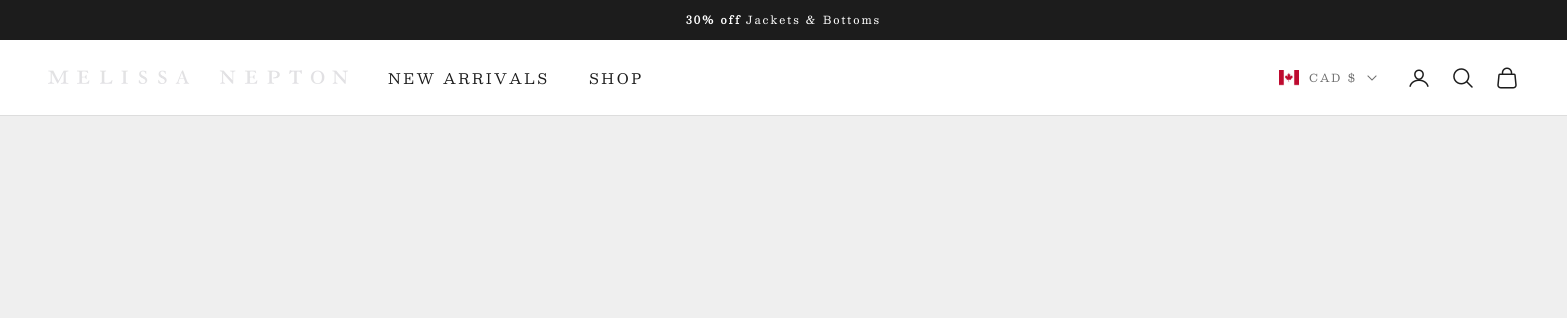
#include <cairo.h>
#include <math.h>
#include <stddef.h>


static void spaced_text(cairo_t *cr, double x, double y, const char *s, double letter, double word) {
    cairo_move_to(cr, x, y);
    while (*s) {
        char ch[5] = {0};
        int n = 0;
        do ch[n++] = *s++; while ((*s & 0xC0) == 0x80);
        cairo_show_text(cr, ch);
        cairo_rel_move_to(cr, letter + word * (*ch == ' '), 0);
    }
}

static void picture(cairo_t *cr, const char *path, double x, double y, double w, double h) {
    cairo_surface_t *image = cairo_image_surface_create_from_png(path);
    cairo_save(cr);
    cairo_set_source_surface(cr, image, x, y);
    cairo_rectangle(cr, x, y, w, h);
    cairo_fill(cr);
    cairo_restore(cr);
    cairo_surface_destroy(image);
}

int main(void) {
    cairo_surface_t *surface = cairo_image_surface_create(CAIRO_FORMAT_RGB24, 1567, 318);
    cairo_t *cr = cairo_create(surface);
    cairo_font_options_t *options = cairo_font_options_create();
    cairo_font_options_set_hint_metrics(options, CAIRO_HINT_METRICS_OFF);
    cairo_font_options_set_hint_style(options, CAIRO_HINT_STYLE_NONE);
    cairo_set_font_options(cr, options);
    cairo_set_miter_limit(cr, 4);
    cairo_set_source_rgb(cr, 0.937, 0.937, 0.937);
    cairo_paint(cr);
    cairo_set_source_rgb(cr, 0.11, 0.11, 0.11);
    cairo_rectangle(cr, 0, 0, 1567, 40);
    cairo_fill(cr);
    cairo_select_font_face(cr, "Besley", CAIRO_FONT_SLANT_NORMAL, CAIRO_FONT_WEIGHT_BOLD);
    cairo_set_font_size(cr, 11);
    cairo_set_source_rgb(cr, 1, 1, 1);
    spaced_text(cr, 686, 24, "30% off", 2, 0);
    cairo_select_font_face(cr, "Besley", CAIRO_FONT_SLANT_NORMAL, CAIRO_FONT_WEIGHT_NORMAL);
    spaced_text(cr, 746, 24, "Jackets & Bottoms", 2, 0);
    cairo_rectangle(cr, 0, 40, 1567, 75);
    cairo_fill(cr);
    cairo_set_source_rgb(cr, 0.867, 0.867, 0.867);
    cairo_rectangle(cr, 0, 115, 1567, 1);
    cairo_fill(cr);
    picture(cr, "img1.png", 48, 70, 300, 14);
    cairo_set_font_size(cr, 14.4);
    cairo_set_source_rgb(cr, 0.11, 0.11, 0.11);
    spaced_text(cr, 388, 84, "NEW ARRIVALS", 2.6, 0);
    spaced_text(cr, 589, 84, "SHOP", 2.6, 0);
    picture(cr, "img2.png", 1279, 70, 20, 16);
    cairo_set_font_size(cr, 11);
    cairo_set_source_rgb(cr, 0.42, 0.42, 0.42);
    spaced_text(cr, 1309, 82, "CAD $", 2, 0);
    cairo_new_path(cr);
    cairo_move_to(cr, 1368, 76);
    cairo_line_to(cr, 1372, 80);
    cairo_line_to(cr, 1376, 76);
    cairo_set_line_width(cr, 1);
    cairo_set_line_cap(cr, CAIRO_LINE_CAP_SQUARE);
    cairo_stroke(cr);
    picture(cr, "img3.png", 1409, 69, 20, 18);
    picture(cr, "img4.png", 1453, 68, 20, 20);
    picture(cr, "img5.png", 1497, 67, 20, 22);
    cairo_surface_write_to_png(surface, "page.png");
    cairo_font_options_destroy(options);
    cairo_destroy(cr);
    cairo_surface_destroy(surface);
    return 0;
}
